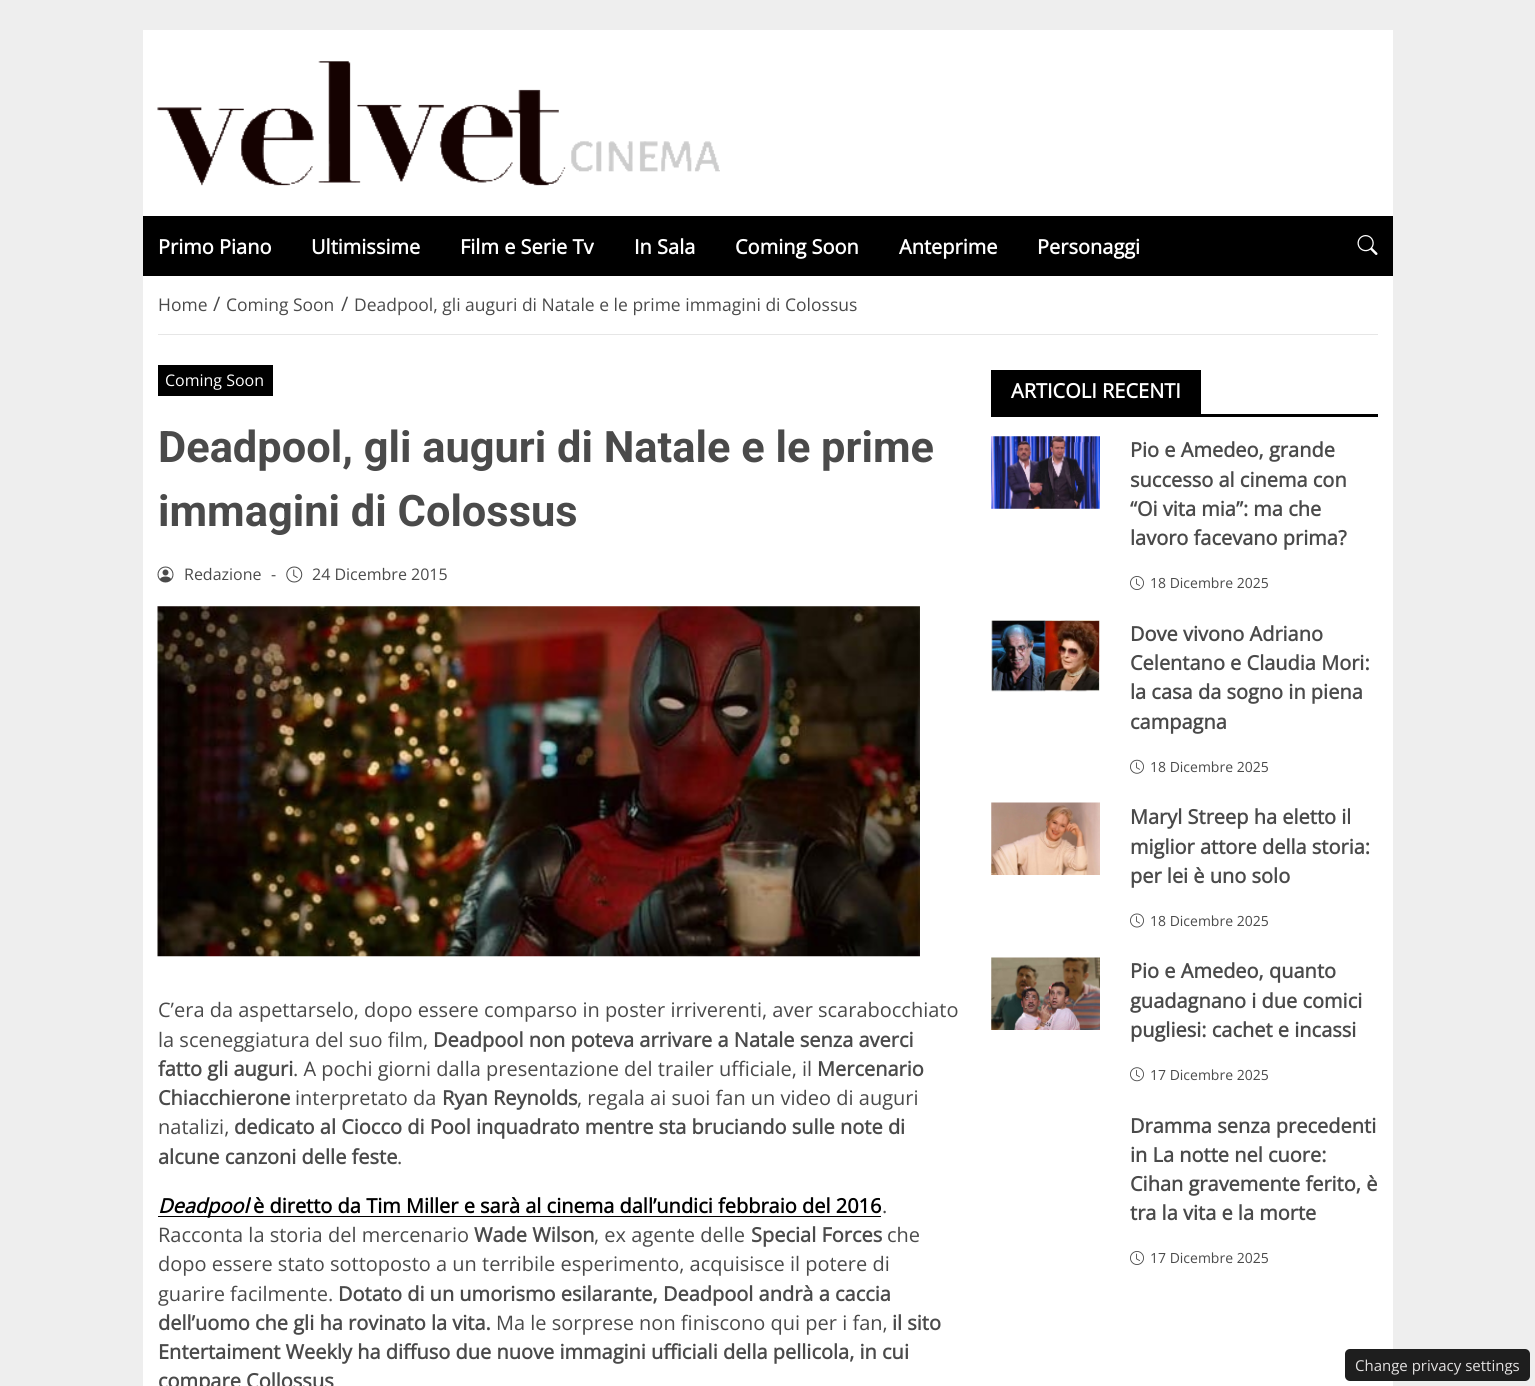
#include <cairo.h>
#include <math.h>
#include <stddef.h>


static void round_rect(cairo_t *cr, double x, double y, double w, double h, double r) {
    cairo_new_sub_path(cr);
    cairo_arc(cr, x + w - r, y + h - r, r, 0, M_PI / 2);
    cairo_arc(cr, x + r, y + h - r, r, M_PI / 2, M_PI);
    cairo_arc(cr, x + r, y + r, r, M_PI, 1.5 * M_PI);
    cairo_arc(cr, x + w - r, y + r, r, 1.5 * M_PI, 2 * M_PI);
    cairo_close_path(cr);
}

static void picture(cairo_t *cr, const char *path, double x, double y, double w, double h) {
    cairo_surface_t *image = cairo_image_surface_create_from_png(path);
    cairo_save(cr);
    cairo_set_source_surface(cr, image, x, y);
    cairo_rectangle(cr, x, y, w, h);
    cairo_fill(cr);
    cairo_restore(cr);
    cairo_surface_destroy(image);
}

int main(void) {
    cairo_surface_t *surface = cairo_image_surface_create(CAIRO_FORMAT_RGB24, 1535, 1386);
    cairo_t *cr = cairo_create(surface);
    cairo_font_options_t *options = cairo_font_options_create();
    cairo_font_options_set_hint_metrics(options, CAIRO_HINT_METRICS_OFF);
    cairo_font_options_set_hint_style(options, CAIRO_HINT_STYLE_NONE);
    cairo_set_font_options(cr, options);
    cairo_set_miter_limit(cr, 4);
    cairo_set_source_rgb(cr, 0.933, 0.933, 0.933);
    cairo_paint(cr);
    cairo_set_source_rgb(cr, 1, 1, 1);
    cairo_rectangle(cr, 143, 30, 1250, 186);
    cairo_fill(cr);
    picture(cr, "img1.png", 157, 61, 563, 125);
    cairo_set_source_rgb(cr, 0, 0, 0);
    cairo_rectangle(cr, 143, 216, 1250, 60);
    cairo_fill(cr);
    cairo_select_font_face(cr, "Open Sans", CAIRO_FONT_SLANT_NORMAL, CAIRO_FONT_WEIGHT_BOLD);
    cairo_set_font_size(cr, 20);
    cairo_set_source_rgb(cr, 1, 1, 1);
    cairo_move_to(cr, 158, 254);
    cairo_show_text(cr, "Primo Piano");
    cairo_move_to(cr, 311, 254);
    cairo_show_text(cr, "Ultimissime");
    cairo_move_to(cr, 460, 254);
    cairo_show_text(cr, "Film e Serie Tv");
    cairo_move_to(cr, 634, 254);
    cairo_show_text(cr, "In Sala");
    cairo_move_to(cr, 735, 254);
    cairo_show_text(cr, "Coming Soon");
    cairo_move_to(cr, 899, 254);
    cairo_show_text(cr, "Anteprime");
    cairo_move_to(cr, 1037, 254);
    cairo_show_text(cr, "Personaggi");
    picture(cr, "img2.png", 1357, 235, 21, 20);
    cairo_rectangle(cr, 143, 276, 1250, 1110);
    cairo_fill(cr);
    cairo_set_source_rgb(cr, 0.902, 0.902, 0.902);
    cairo_rectangle(cr, 158, 334, 1220, 1);
    cairo_fill(cr);
    cairo_select_font_face(cr, "Open Sans", CAIRO_FONT_SLANT_NORMAL, CAIRO_FONT_WEIGHT_NORMAL);
    cairo_set_font_size(cr, 17.5);
    cairo_set_source_rgb(cr, 0.29, 0.29, 0.29);
    cairo_move_to(cr, 158, 311);
    cairo_show_text(cr, "Home");
    cairo_set_font_size(cr, 20);
    cairo_move_to(cr, 213, 311);
    cairo_show_text(cr, "/");
    cairo_set_font_size(cr, 17.5);
    cairo_move_to(cr, 226, 311);
    cairo_show_text(cr, "Coming Soon");
    cairo_set_font_size(cr, 20);
    cairo_move_to(cr, 341, 311);
    cairo_show_text(cr, "/");
    cairo_set_font_size(cr, 17.5);
    cairo_move_to(cr, 354, 311);
    cairo_show_text(cr, "Deadpool, gli auguri di Natale e le prime immagini di Colossus");
    cairo_set_source_rgb(cr, 0, 0, 0);
    cairo_rectangle(cr, 158, 365, 115, 31);
    cairo_fill(cr);
    cairo_set_font_size(cr, 16);
    cairo_set_source_rgb(cr, 1, 1, 1);
    cairo_move_to(cr, 165, 386);
    cairo_show_text(cr, "Coming Soon");
    cairo_select_font_face(cr, "Roboto", CAIRO_FONT_SLANT_NORMAL, CAIRO_FONT_WEIGHT_BOLD);
    cairo_set_font_size(cr, 43.4);
    cairo_set_source_rgb(cr, 0.29, 0.29, 0.29);
    cairo_move_to(cr, 158, 462);
    cairo_show_text(cr, "Deadpool, gli auguri di Natale e le prime");
    cairo_move_to(cr, 158, 526);
    cairo_show_text(cr, "immagini di Colossus");
    picture(cr, "img3.png", 157, 566, 17, 17);
    cairo_select_font_face(cr, "Open Sans", CAIRO_FONT_SLANT_NORMAL, CAIRO_FONT_WEIGHT_NORMAL);
    cairo_set_font_size(cr, 16);
    cairo_move_to(cr, 184, 580);
    cairo_show_text(cr, "Redazione");
    cairo_move_to(cr, 271, 580);
    cairo_show_text(cr, "-");
    picture(cr, "img4.png", 286, 566, 17, 17);
    cairo_move_to(cr, 312, 580);
    cairo_show_text(cr, "24 Dicembre 2015");
    picture(cr, "img5.png", 157, 606, 763, 351);
    cairo_set_font_size(cr, 20);
    cairo_move_to(cr, 158, 1017);
    cairo_show_text(cr, "C’era da aspettarselo, dopo essere comparso in poster irriverenti, aver scarabocchiato");
    cairo_move_to(cr, 158, 1047);
    cairo_show_text(cr, "la sceneggiatura del suo film,");
    cairo_select_font_face(cr, "Open Sans", CAIRO_FONT_SLANT_NORMAL, CAIRO_FONT_WEIGHT_BOLD);
    cairo_move_to(cr, 433, 1047);
    cairo_show_text(cr, "Deadpool non poteva arrivare a Natale senza averci");
    cairo_move_to(cr, 158, 1076);
    cairo_show_text(cr, "fatto gli auguri");
    cairo_select_font_face(cr, "Open Sans", CAIRO_FONT_SLANT_NORMAL, CAIRO_FONT_WEIGHT_NORMAL);
    cairo_move_to(cr, 293, 1076);
    cairo_show_text(cr, ". A pochi giorni dalla presentazione del trailer ufficiale, il");
    cairo_select_font_face(cr, "Open Sans", CAIRO_FONT_SLANT_NORMAL, CAIRO_FONT_WEIGHT_BOLD);
    cairo_move_to(cr, 817, 1076);
    cairo_show_text(cr, "Mercenario");
    cairo_move_to(cr, 158, 1105);
    cairo_show_text(cr, "Chiacchierone");
    cairo_select_font_face(cr, "Open Sans", CAIRO_FONT_SLANT_NORMAL, CAIRO_FONT_WEIGHT_NORMAL);
    cairo_move_to(cr, 295, 1105);
    cairo_show_text(cr, "interpretato da");
    cairo_select_font_face(cr, "Open Sans", CAIRO_FONT_SLANT_NORMAL, CAIRO_FONT_WEIGHT_BOLD);
    cairo_move_to(cr, 442, 1105);
    cairo_show_text(cr, "Ryan Reynolds");
    cairo_select_font_face(cr, "Open Sans", CAIRO_FONT_SLANT_NORMAL, CAIRO_FONT_WEIGHT_NORMAL);
    cairo_move_to(cr, 577, 1105);
    cairo_show_text(cr, ", regala ai suoi fan un video di auguri");
    cairo_move_to(cr, 158, 1134);
    cairo_show_text(cr, "natalizi,");
    cairo_select_font_face(cr, "Open Sans", CAIRO_FONT_SLANT_NORMAL, CAIRO_FONT_WEIGHT_BOLD);
    cairo_move_to(cr, 234, 1134);
    cairo_show_text(cr, "dedicato al Ciocco di Pool inquadrato mentre sta bruciando sulle note di");
    cairo_move_to(cr, 158, 1164);
    cairo_show_text(cr, "alcune canzoni delle feste");
    cairo_select_font_face(cr, "Open Sans", CAIRO_FONT_SLANT_NORMAL, CAIRO_FONT_WEIGHT_NORMAL);
    cairo_move_to(cr, 397, 1164);
    cairo_show_text(cr, ".");
    cairo_set_source_rgb(cr, 0, 0, 0);
    cairo_rectangle(cr, 158, 1216, 90, 1);
    cairo_fill(cr);
    cairo_select_font_face(cr, "Open Sans", CAIRO_FONT_SLANT_ITALIC, CAIRO_FONT_WEIGHT_BOLD);
    cairo_move_to(cr, 158, 1213);
    cairo_show_text(cr, "Deadpool");
    cairo_rectangle(cr, 248, 1216, 633, 1);
    cairo_fill(cr);
    cairo_select_font_face(cr, "Open Sans", CAIRO_FONT_SLANT_NORMAL, CAIRO_FONT_WEIGHT_BOLD);
    cairo_move_to(cr, 253, 1213);
    cairo_show_text(cr, "è diretto da Tim Miller e sarà al cinema dall’undici febbraio del 2016");
    cairo_select_font_face(cr, "Open Sans", CAIRO_FONT_SLANT_NORMAL, CAIRO_FONT_WEIGHT_NORMAL);
    cairo_set_source_rgb(cr, 0.29, 0.29, 0.29);
    cairo_move_to(cr, 882, 1213);
    cairo_show_text(cr, ".");
    cairo_move_to(cr, 158, 1242);
    cairo_show_text(cr, "Racconta la storia del mercenario");
    cairo_select_font_face(cr, "Open Sans", CAIRO_FONT_SLANT_NORMAL, CAIRO_FONT_WEIGHT_BOLD);
    cairo_move_to(cr, 474, 1242);
    cairo_show_text(cr, "Wade Wilson");
    cairo_select_font_face(cr, "Open Sans", CAIRO_FONT_SLANT_NORMAL, CAIRO_FONT_WEIGHT_NORMAL);
    cairo_move_to(cr, 594, 1242);
    cairo_show_text(cr, ", ex agente delle");
    cairo_select_font_face(cr, "Open Sans", CAIRO_FONT_SLANT_NORMAL, CAIRO_FONT_WEIGHT_BOLD);
    cairo_move_to(cr, 751, 1242);
    cairo_show_text(cr, "Special Forces");
    cairo_select_font_face(cr, "Open Sans", CAIRO_FONT_SLANT_NORMAL, CAIRO_FONT_WEIGHT_NORMAL);
    cairo_move_to(cr, 887, 1242);
    cairo_show_text(cr, "che");
    cairo_move_to(cr, 158, 1271);
    cairo_show_text(cr, "dopo essere stato sottoposto a un terribile esperimento, acquisisce il potere di");
    cairo_move_to(cr, 158, 1301);
    cairo_show_text(cr, "guarire facilmente.");
    cairo_select_font_face(cr, "Open Sans", CAIRO_FONT_SLANT_NORMAL, CAIRO_FONT_WEIGHT_BOLD);
    cairo_move_to(cr, 338, 1301);
    cairo_show_text(cr, "Dotato di un umorismo esilarante, Deadpool andrà a caccia");
    cairo_move_to(cr, 158, 1330);
    cairo_show_text(cr, "dell’uomo che gli ha rovinato la vita.");
    cairo_select_font_face(cr, "Open Sans", CAIRO_FONT_SLANT_NORMAL, CAIRO_FONT_WEIGHT_NORMAL);
    cairo_move_to(cr, 496, 1330);
    cairo_show_text(cr, "Ma le sorprese non finiscono qui per i fan,");
    cairo_select_font_face(cr, "Open Sans", CAIRO_FONT_SLANT_NORMAL, CAIRO_FONT_WEIGHT_BOLD);
    cairo_move_to(cr, 892, 1330);
    cairo_show_text(cr, "il sito");
    cairo_move_to(cr, 158, 1359);
    cairo_show_text(cr, "Entertaiment Weekly ha diffuso due nuove immagini ufficiali della pellicola, in cui");
    cairo_move_to(cr, 158, 1388);
    cairo_show_text(cr, "compare Collossus");
    cairo_set_source_rgb(cr, 0, 0, 0);
    cairo_rectangle(cr, 991, 414, 387, 3);
    cairo_fill(cr);
    cairo_rectangle(cr, 991, 370, 210, 44);
    cairo_fill(cr);
    cairo_set_source_rgb(cr, 1, 1, 1);
    cairo_move_to(cr, 1011, 398);
    cairo_show_text(cr, "ARTICOLI RECENTI");
    picture(cr, "img6.png", 991, 436, 109, 73);
    cairo_set_source_rgb(cr, 0.29, 0.29, 0.29);
    cairo_move_to(cr, 1130, 457);
    cairo_show_text(cr, "Pio e Amedeo, grande");
    cairo_move_to(cr, 1130, 487);
    cairo_show_text(cr, "successo al cinema con");
    cairo_move_to(cr, 1130, 516);
    cairo_show_text(cr, "“Oi vita mia”: ma che");
    cairo_move_to(cr, 1130, 545);
    cairo_show_text(cr, "lavoro facevano prima?");
    picture(cr, "img7.png", 1130, 576, 14, 14);
    cairo_select_font_face(cr, "Open Sans", CAIRO_FONT_SLANT_NORMAL, CAIRO_FONT_WEIGHT_NORMAL);
    cairo_set_font_size(cr, 14);
    cairo_move_to(cr, 1150, 588);
    cairo_show_text(cr, "18 Dicembre 2025");
    picture(cr, "img8.png", 991, 620, 109, 72);
    cairo_select_font_face(cr, "Open Sans", CAIRO_FONT_SLANT_NORMAL, CAIRO_FONT_WEIGHT_BOLD);
    cairo_set_font_size(cr, 20);
    cairo_move_to(cr, 1130, 641);
    cairo_show_text(cr, "Dove vivono Adriano");
    cairo_move_to(cr, 1130, 670);
    cairo_show_text(cr, "Celentano e Claudia Mori:");
    cairo_move_to(cr, 1130, 699);
    cairo_show_text(cr, "la casa da sogno in piena");
    cairo_move_to(cr, 1130, 729);
    cairo_show_text(cr, "campagna");
    picture(cr, "img9.png", 1130, 759, 14, 15);
    cairo_select_font_face(cr, "Open Sans", CAIRO_FONT_SLANT_NORMAL, CAIRO_FONT_WEIGHT_NORMAL);
    cairo_set_font_size(cr, 14);
    cairo_move_to(cr, 1150, 772);
    cairo_show_text(cr, "18 Dicembre 2025");
    picture(cr, "img10.png", 991, 802, 109, 73);
    cairo_select_font_face(cr, "Open Sans", CAIRO_FONT_SLANT_NORMAL, CAIRO_FONT_WEIGHT_BOLD);
    cairo_set_font_size(cr, 20);
    cairo_move_to(cr, 1130, 824);
    cairo_show_text(cr, "Maryl Streep ha eletto il");
    cairo_move_to(cr, 1130, 854);
    cairo_show_text(cr, "miglior attore della storia:");
    cairo_move_to(cr, 1130, 883);
    cairo_show_text(cr, "per lei è uno solo");
    picture(cr, "img11.png", 1130, 913, 14, 15);
    cairo_select_font_face(cr, "Open Sans", CAIRO_FONT_SLANT_NORMAL, CAIRO_FONT_WEIGHT_NORMAL);
    cairo_set_font_size(cr, 14);
    cairo_move_to(cr, 1150, 926);
    cairo_show_text(cr, "18 Dicembre 2025");
    picture(cr, "img12.png", 991, 957, 109, 73);
    cairo_select_font_face(cr, "Open Sans", CAIRO_FONT_SLANT_NORMAL, CAIRO_FONT_WEIGHT_BOLD);
    cairo_set_font_size(cr, 20);
    cairo_move_to(cr, 1130, 978);
    cairo_show_text(cr, "Pio e Amedeo, quanto");
    cairo_move_to(cr, 1130, 1008);
    cairo_show_text(cr, "guadagnano i due comici");
    cairo_move_to(cr, 1130, 1037);
    cairo_show_text(cr, "pugliesi: cachet e incassi");
    picture(cr, "img13.png", 1130, 1067, 14, 15);
    cairo_select_font_face(cr, "Open Sans", CAIRO_FONT_SLANT_NORMAL, CAIRO_FONT_WEIGHT_NORMAL);
    cairo_set_font_size(cr, 14);
    cairo_move_to(cr, 1150, 1080);
    cairo_show_text(cr, "17 Dicembre 2025");
    cairo_select_font_face(cr, "Open Sans", CAIRO_FONT_SLANT_NORMAL, CAIRO_FONT_WEIGHT_BOLD);
    cairo_set_font_size(cr, 20);
    cairo_move_to(cr, 1130, 1133);
    cairo_show_text(cr, "Dramma senza precedenti");
    cairo_move_to(cr, 1130, 1162);
    cairo_show_text(cr, "in La notte nel cuore:");
    cairo_move_to(cr, 1130, 1191);
    cairo_show_text(cr, "Cihan gravemente ferito, è");
    cairo_move_to(cr, 1130, 1220);
    cairo_show_text(cr, "tra la vita e la morte");
    picture(cr, "img7.png", 1130, 1251, 14, 14);
    cairo_select_font_face(cr, "Open Sans", CAIRO_FONT_SLANT_NORMAL, CAIRO_FONT_WEIGHT_NORMAL);
    cairo_set_font_size(cr, 14);
    cairo_move_to(cr, 1150, 1263);
    cairo_show_text(cr, "17 Dicembre 2025");
    cairo_set_source_rgb(cr, 0.118, 0.118, 0.118);
    round_rect(cr, 1345, 1349, 185, 32, 5);
    cairo_fill(cr);
    cairo_set_font_size(cr, 15);
    cairo_set_source_rgb(cr, 0.89, 0.882, 0.882);
    cairo_move_to(cr, 1355, 1371);
    cairo_show_text(cr, "Change privacy settings");
    cairo_surface_write_to_png(surface, "page.png");
    cairo_font_options_destroy(options);
    cairo_destroy(cr);
    cairo_surface_destroy(surface);
    return 0;
}
